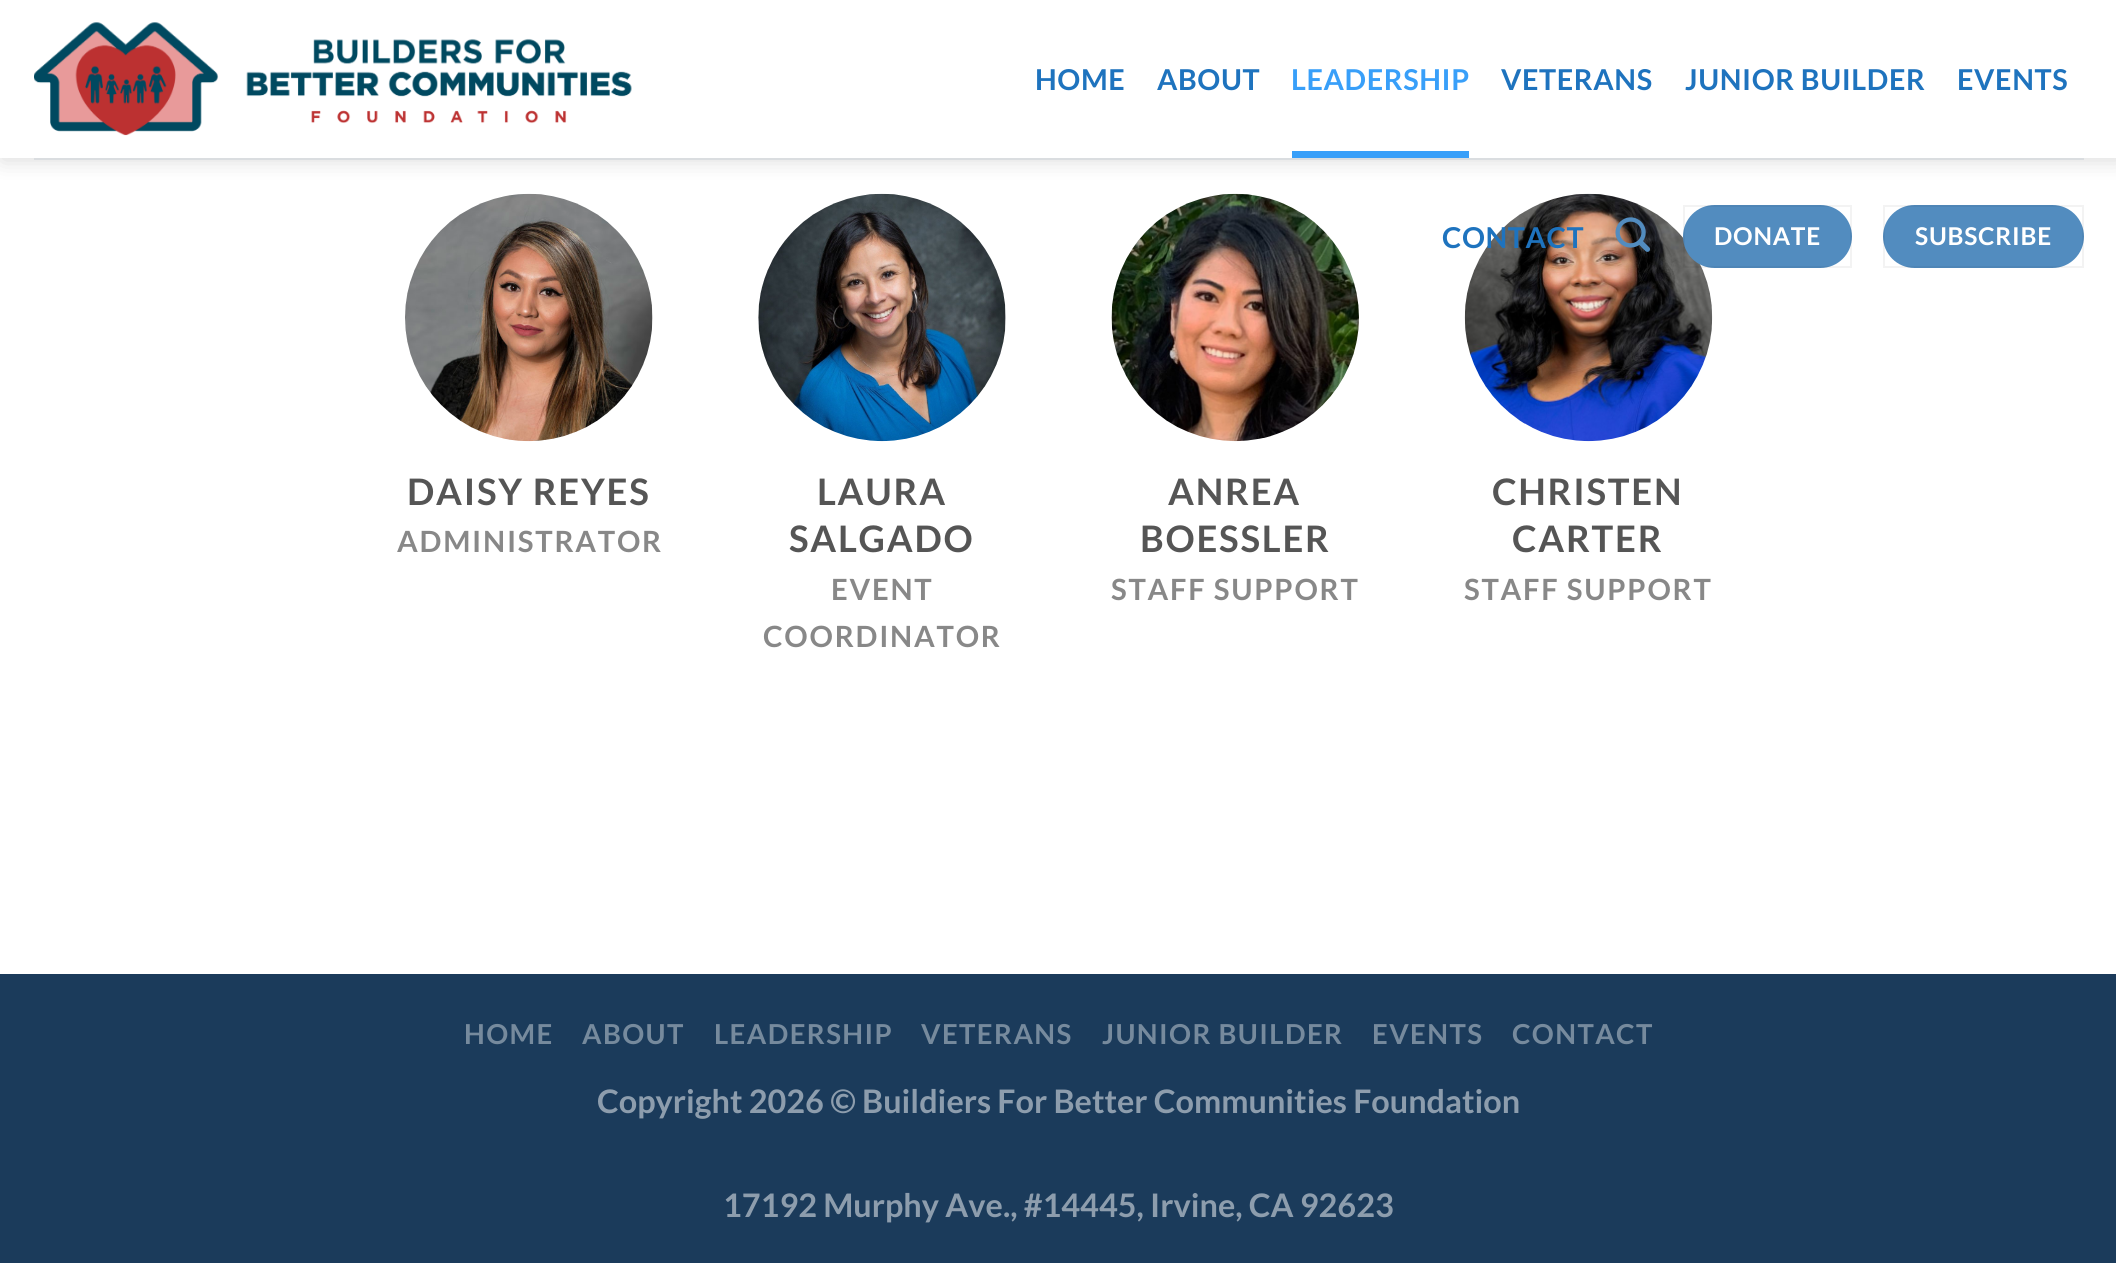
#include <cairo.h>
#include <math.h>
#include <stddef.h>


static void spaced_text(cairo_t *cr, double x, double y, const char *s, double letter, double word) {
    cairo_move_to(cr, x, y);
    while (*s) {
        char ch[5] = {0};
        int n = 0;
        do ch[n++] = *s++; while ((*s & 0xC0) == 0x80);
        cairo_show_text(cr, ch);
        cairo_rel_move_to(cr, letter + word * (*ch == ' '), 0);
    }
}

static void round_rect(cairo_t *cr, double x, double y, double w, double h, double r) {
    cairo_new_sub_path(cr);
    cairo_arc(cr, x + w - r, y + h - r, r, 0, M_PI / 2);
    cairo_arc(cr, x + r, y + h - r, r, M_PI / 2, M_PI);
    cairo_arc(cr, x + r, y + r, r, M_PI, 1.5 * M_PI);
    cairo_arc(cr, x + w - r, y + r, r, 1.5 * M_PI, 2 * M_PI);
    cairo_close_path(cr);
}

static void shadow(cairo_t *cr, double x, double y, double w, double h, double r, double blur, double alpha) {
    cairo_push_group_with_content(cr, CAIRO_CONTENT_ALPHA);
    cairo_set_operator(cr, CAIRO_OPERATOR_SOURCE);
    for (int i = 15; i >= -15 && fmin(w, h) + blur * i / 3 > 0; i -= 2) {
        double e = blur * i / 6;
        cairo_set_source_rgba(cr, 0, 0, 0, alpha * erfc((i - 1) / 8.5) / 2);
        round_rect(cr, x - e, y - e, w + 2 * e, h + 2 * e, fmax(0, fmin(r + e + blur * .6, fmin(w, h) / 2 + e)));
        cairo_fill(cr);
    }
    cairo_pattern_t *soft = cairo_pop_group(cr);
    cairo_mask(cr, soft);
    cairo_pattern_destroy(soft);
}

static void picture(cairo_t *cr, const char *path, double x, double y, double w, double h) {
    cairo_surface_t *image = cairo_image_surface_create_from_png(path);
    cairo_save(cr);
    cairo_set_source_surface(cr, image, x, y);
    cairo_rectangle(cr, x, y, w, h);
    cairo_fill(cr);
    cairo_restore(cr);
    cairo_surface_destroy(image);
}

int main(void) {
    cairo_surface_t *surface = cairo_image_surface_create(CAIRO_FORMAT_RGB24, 2116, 1263);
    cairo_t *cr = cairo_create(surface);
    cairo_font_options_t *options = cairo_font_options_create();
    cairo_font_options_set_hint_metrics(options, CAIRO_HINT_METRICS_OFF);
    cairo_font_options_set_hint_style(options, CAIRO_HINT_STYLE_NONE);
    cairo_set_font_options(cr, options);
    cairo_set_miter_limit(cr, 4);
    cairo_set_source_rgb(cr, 1, 1, 1);
    cairo_paint(cr);
    picture(cr, "img3.png", 405, 193, 248, 249);
    picture(cr, "img4.png", 758, 193, 248, 249);
    picture(cr, "img5.png", 1111, 193, 248, 249);
    picture(cr, "img6.png", 1464, 193, 249, 249);
    cairo_set_source_rgb(cr, 0, 0, 0);
    shadow(cr, 2, 2, 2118, 158, 0, 11, 0.15);
    cairo_set_source_rgb(cr, 1, 1, 1);
    cairo_rectangle(cr, 0, 0, 2116, 158);
    cairo_fill(cr);
    picture(cr, "img1.png", 34, 22, 598, 114);
    cairo_select_font_face(cr, "Lato", CAIRO_FONT_SLANT_NORMAL, CAIRO_FONT_WEIGHT_BOLD);
    cairo_set_font_size(cr, 28.75);
    cairo_set_source_rgb(cr, 0.118, 0.451, 0.745);
    spaced_text(cr, 1035, 90, "HOME", 0.6, 0);
    spaced_text(cr, 1157, 90, "ABOUT", 0.6, 0);
    cairo_set_source_rgb(cr, 0.22, 0.624, 0.976);
    spaced_text(cr, 1291, 90, "LEADERSHIP", 0.6, 0);
    cairo_rectangle(cr, 1292, 151, 177, 7);
    cairo_fill(cr);
    cairo_set_source_rgb(cr, 0.118, 0.451, 0.745);
    spaced_text(cr, 1501, 90, "VETERANS", 0.6, 0);
    spaced_text(cr, 1685, 90, "JUNIOR BUILDER", 0.6, 0);
    spaced_text(cr, 1957, 90, "EVENTS", 0.6, 0);
    spaced_text(cr, 1442, 248, "CONTACT", 0.6, 0);
    picture(cr, "img2.png", 1615, 217, 35, 35);
    cairo_set_source_rgb(cr, 0.322, 0.549, 0.749);
    round_rect(cr, 1683, 205, 169, 63, 31.5);
    cairo_fill(cr);
    cairo_rectangle(cr, 1684, 206, 167, 61);
    cairo_set_source_rgba(cr, 0, 0, 0, 0.05);
    cairo_stroke(cr);
    cairo_set_font_size(cr, 24.5);
    cairo_set_source_rgb(cr, 1, 1, 1);
    spaced_text(cr, 1714, 245, "DONATE", 0.75, 0);
    cairo_set_source_rgb(cr, 0.322, 0.549, 0.749);
    round_rect(cr, 1883, 205, 201, 63, 31.5);
    cairo_fill(cr);
    cairo_rectangle(cr, 1884, 206, 199, 61);
    cairo_set_source_rgba(cr, 0, 0, 0, 0.05);
    cairo_stroke(cr);
    cairo_set_source_rgb(cr, 1, 1, 1);
    spaced_text(cr, 1915, 245, "SUBSCRIBE", 0.75, 0);
    cairo_set_source_rgb(cr, 0.855, 0.867, 0.878);
    cairo_rectangle(cr, 34, 158, 2050, 2);
    cairo_fill(cr);
    cairo_set_font_size(cr, 36.5);
    cairo_set_source_rgb(cr, 0.333, 0.333, 0.333);
    spaced_text(cr, 407, 505, "DAISY REYES", 1.75, 0);
    cairo_set_font_size(cr, 29.25);
    cairo_set_source_rgb(cr, 0.533, 0.533, 0.533);
    spaced_text(cr, 397, 552, "ADMINISTRATOR", 1.75, 0);
    cairo_set_font_size(cr, 36.5);
    cairo_set_source_rgb(cr, 0.333, 0.333, 0.333);
    spaced_text(cr, 817, 505, "LAURA", 1.75, 0);
    spaced_text(cr, 789, 552, "SALGADO", 1.75, 0);
    cairo_set_font_size(cr, 29.25);
    cairo_set_source_rgb(cr, 0.533, 0.533, 0.533);
    spaced_text(cr, 831, 600, "EVENT", 1.75, 0);
    spaced_text(cr, 763, 647, "COORDINATOR", 1.75, 0);
    cairo_set_font_size(cr, 36.5);
    cairo_set_source_rgb(cr, 0.333, 0.333, 0.333);
    spaced_text(cr, 1168, 505, "ANREA", 1.75, 0);
    spaced_text(cr, 1140, 552, "BOESSLER", 1.75, 0);
    cairo_set_font_size(cr, 29.25);
    cairo_set_source_rgb(cr, 0.533, 0.533, 0.533);
    spaced_text(cr, 1111, 600, "STAFF SUPPORT", 1.75, 0);
    cairo_set_font_size(cr, 36.5);
    cairo_set_source_rgb(cr, 0.333, 0.333, 0.333);
    spaced_text(cr, 1492, 505, "CHRISTEN", 1.75, 0);
    spaced_text(cr, 1512, 552, "CARTER", 1.75, 0);
    cairo_set_font_size(cr, 29.25);
    cairo_set_source_rgb(cr, 0.533, 0.533, 0.533);
    spaced_text(cr, 1464, 600, "STAFF SUPPORT", 1.75, 0);
    cairo_set_source_rgb(cr, 0.106, 0.231, 0.357);
    cairo_rectangle(cr, 0, 974, 2116, 289);
    cairo_fill(cr);
    cairo_set_font_size(cr, 27.5);
    cairo_set_source_rgb(cr, 0.463, 0.541, 0.616);
    spaced_text(cr, 464, 1044, "HOME", 1.4, 0);
    spaced_text(cr, 582, 1044, "ABOUT", 1.4, 0);
    spaced_text(cr, 714, 1044, "LEADERSHIP", 1.4, 0);
    spaced_text(cr, 921, 1044, "VETERANS", 1.4, 0);
    spaced_text(cr, 1102, 1044, "JUNIOR BUILDER", 1.4, 0);
    spaced_text(cr, 1372, 1044, "EVENTS", 1.4, 0);
    spaced_text(cr, 1512, 1044, "CONTACT", 1.4, 0);
    cairo_set_font_size(cr, 32.4);
    cairo_set_source_rgb(cr, 0.553, 0.616, 0.678);
    cairo_move_to(cr, 597, 1113);
    cairo_show_text(cr, "Copyright 2026 © Buildiers For Better Communities Foundation");
    cairo_move_to(cr, 723, 1217);
    cairo_show_text(cr, "17192 Murphy Ave., #14445, Irvine, CA 92623");
    cairo_surface_write_to_png(surface, "page.png");
    cairo_font_options_destroy(options);
    cairo_destroy(cr);
    cairo_surface_destroy(surface);
    return 0;
}
